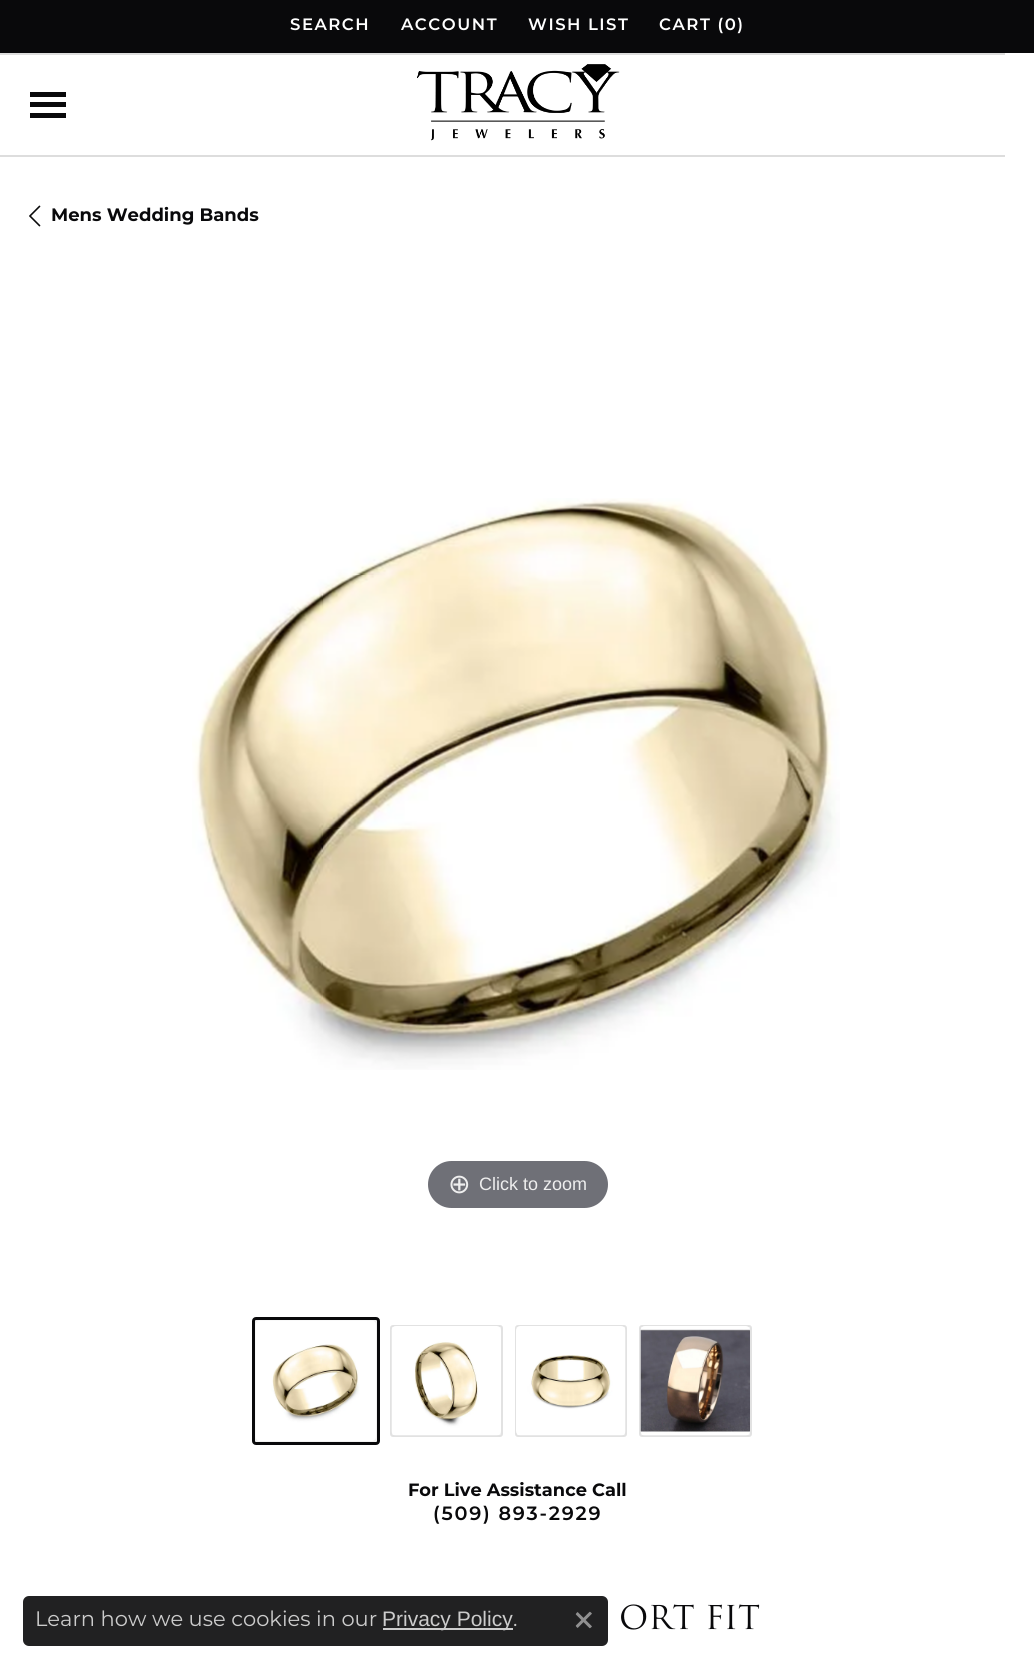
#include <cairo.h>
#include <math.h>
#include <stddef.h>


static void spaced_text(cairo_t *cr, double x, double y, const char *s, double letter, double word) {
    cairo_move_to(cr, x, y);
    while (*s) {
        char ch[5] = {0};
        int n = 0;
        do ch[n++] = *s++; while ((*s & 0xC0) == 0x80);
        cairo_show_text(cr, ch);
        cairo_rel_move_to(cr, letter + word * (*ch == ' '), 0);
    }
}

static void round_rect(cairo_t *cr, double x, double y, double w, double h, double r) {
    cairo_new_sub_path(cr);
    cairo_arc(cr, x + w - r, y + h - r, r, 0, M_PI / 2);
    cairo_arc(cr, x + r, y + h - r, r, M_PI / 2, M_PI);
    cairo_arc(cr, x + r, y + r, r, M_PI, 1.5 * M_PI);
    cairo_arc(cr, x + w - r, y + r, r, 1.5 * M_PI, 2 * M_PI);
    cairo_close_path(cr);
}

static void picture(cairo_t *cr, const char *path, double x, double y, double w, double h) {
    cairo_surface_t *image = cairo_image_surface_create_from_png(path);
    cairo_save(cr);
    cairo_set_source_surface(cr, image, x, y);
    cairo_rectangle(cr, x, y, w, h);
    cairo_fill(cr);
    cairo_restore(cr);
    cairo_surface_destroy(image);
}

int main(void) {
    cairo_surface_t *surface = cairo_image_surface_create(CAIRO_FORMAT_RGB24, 1034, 1668);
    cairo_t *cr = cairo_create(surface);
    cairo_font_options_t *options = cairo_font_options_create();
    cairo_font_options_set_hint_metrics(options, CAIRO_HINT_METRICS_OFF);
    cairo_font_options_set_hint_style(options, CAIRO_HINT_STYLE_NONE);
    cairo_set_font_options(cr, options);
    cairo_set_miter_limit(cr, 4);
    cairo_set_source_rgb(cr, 1, 1, 1);
    cairo_paint(cr);
    cairo_set_source_rgb(cr, 0.039, 0.039, 0.043);
    cairo_rectangle(cr, 0, 0, 1034, 53);
    cairo_fill(cr);
    cairo_select_font_face(cr, "Montserrat SemiBold", CAIRO_FONT_SLANT_NORMAL, CAIRO_FONT_WEIGHT_NORMAL);
    cairo_set_font_size(cr, 16.5);
    cairo_set_source_rgb(cr, 1, 1, 1);
    spaced_text(cr, 290, 30, "SEARCH", 1.5, 0);
    spaced_text(cr, 401, 30, "ACCOUNT", 1.5, 0);
    spaced_text(cr, 528, 30, "WISH LIST", 1.5, 0);
    spaced_text(cr, 659, 30, "CART (0)", 1.5, 0);
    cairo_set_source_rgb(cr, 0.867, 0.867, 0.867);
    cairo_rectangle(cr, 0, 53, 1005, 2);
    cairo_fill(cr);
    cairo_rectangle(cr, 0, 155, 1005, 2);
    cairo_fill(cr);
    cairo_set_source_rgb(cr, 0.039, 0.039, 0.043);
    cairo_rectangle(cr, 30, 92, 36, 5);
    cairo_fill(cr);
    cairo_rectangle(cr, 30, 102, 36, 5);
    cairo_fill(cr);
    cairo_rectangle(cr, 30, 113, 36, 5);
    cairo_fill(cr);
    picture(cr, "img1.png", 417, 64, 203, 77);
    picture(cr, "img2.png", 29, 205, 12, 22);
    cairo_select_font_face(cr, "Montserrat", CAIRO_FONT_SLANT_NORMAL, CAIRO_FONT_WEIGHT_BOLD);
    cairo_set_font_size(cr, 18);
    cairo_move_to(cr, 51, 221);
    cairo_show_text(cr, "Mens Wedding Bands");
    picture(cr, "img3.png", 192, 498, 648, 572);
    cairo_set_source_rgb(cr, 0.435, 0.439, 0.467);
    round_rect(cr, 428, 1161, 180, 47, 23.5);
    cairo_fill(cr);
    cairo_select_font_face(cr, "DejaVu Sans", CAIRO_FONT_SLANT_NORMAL, CAIRO_FONT_WEIGHT_NORMAL);
    cairo_set_font_size(cr, 27);
    cairo_set_source_rgb(cr, 0.933, 0.933, 0.933);
    cairo_move_to(cr, 448, 1193);
    cairo_show_text(cr, "⊕");
    cairo_select_font_face(cr, "Liberation Sans", CAIRO_FONT_SLANT_NORMAL, CAIRO_FONT_WEIGHT_NORMAL);
    cairo_set_font_size(cr, 18);
    cairo_move_to(cr, 479, 1190);
    cairo_show_text(cr, "Click to zoom");
    cairo_set_source_rgb(cr, 0.949, 0.949, 0.949);
    round_rect(cr, 253.5, 1318.5, 125, 125, 2.5);
    cairo_fill_preserve(cr);
    cairo_set_source_rgb(cr, 0.039, 0.039, 0.043);
    cairo_set_line_width(cr, 3);
    cairo_stroke(cr);
    picture(cr, "img4.png", 255, 1320, 121, 121);
    cairo_set_source_rgb(cr, 0.949, 0.949, 0.949);
    round_rect(cr, 390, 1325, 113, 112, 3);
    cairo_fill(cr);
    round_rect(cr, 391, 1326, 111, 110, 2);
    cairo_set_source_rgba(cr, 0.039, 0.039, 0.043, 0.07);
    cairo_set_line_width(cr, 2);
    cairo_stroke(cr);
    picture(cr, "img5.png", 391, 1326, 110, 110);
    cairo_set_source_rgb(cr, 0.949, 0.949, 0.949);
    round_rect(cr, 515, 1325, 112, 112, 3);
    cairo_fill(cr);
    round_rect(cr, 516, 1326, 110, 110, 2);
    cairo_set_source_rgba(cr, 0.039, 0.039, 0.043, 0.07);
    cairo_stroke(cr);
    picture(cr, "img6.png", 516, 1326, 110, 110);
    cairo_set_source_rgb(cr, 0.949, 0.949, 0.949);
    round_rect(cr, 639, 1325, 113, 112, 3);
    cairo_fill(cr);
    round_rect(cr, 640, 1326, 111, 110, 2);
    cairo_set_source_rgba(cr, 0.039, 0.039, 0.043, 0.07);
    cairo_stroke(cr);
    picture(cr, "img7.png", 640, 1326, 110, 110);
    cairo_select_font_face(cr, "Montserrat", CAIRO_FONT_SLANT_NORMAL, CAIRO_FONT_WEIGHT_BOLD);
    cairo_set_font_size(cr, 17.8);
    cairo_set_source_rgb(cr, 0.039, 0.039, 0.043);
    cairo_move_to(cr, 408, 1496);
    cairo_show_text(cr, "For Live Assistance Call");
    cairo_select_font_face(cr, "Montserrat SemiBold", CAIRO_FONT_SLANT_NORMAL, CAIRO_FONT_WEIGHT_NORMAL);
    cairo_set_font_size(cr, 19.25);
    spaced_text(cr, 433, 1520, "(509) 893-2929", 1.75, 0);
    cairo_select_font_face(cr, "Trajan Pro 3", CAIRO_FONT_SLANT_NORMAL, CAIRO_FONT_WEIGHT_NORMAL);
    cairo_set_font_size(cr, 32);
    cairo_move_to(cr, 619, 1629);
    cairo_show_text(cr, "ORT FIT");
    cairo_set_source_rgba(cr, 0.039, 0.039, 0.043, 0.9);
    round_rect(cr, 23, 1596, 585, 50, 6);
    cairo_fill(cr);
    cairo_select_font_face(cr, "Montserrat", CAIRO_FONT_SLANT_NORMAL, CAIRO_FONT_WEIGHT_NORMAL);
    cairo_set_font_size(cr, 21);
    cairo_set_source_rgb(cr, 0.8, 0.8, 0.8);
    cairo_move_to(cr, 35, 1626);
    cairo_show_text(cr, "Learn how we use cookies in our");
    cairo_rectangle(cr, 383, 1628, 130, 2);
    cairo_fill(cr);
    cairo_select_font_face(cr, "Liberation Sans", CAIRO_FONT_SLANT_NORMAL, CAIRO_FONT_WEIGHT_NORMAL);
    cairo_move_to(cr, 382, 1626);
    cairo_show_text(cr, "Privacy Policy");
    cairo_select_font_face(cr, "Montserrat", CAIRO_FONT_SLANT_NORMAL, CAIRO_FONT_WEIGHT_NORMAL);
    cairo_move_to(cr, 513, 1626);
    cairo_show_text(cr, ".");
    picture(cr, "img8.png", 575, 1611, 17, 18);
    cairo_surface_write_to_png(surface, "page.png");
    cairo_font_options_destroy(options);
    cairo_destroy(cr);
    cairo_surface_destroy(surface);
    return 0;
}
